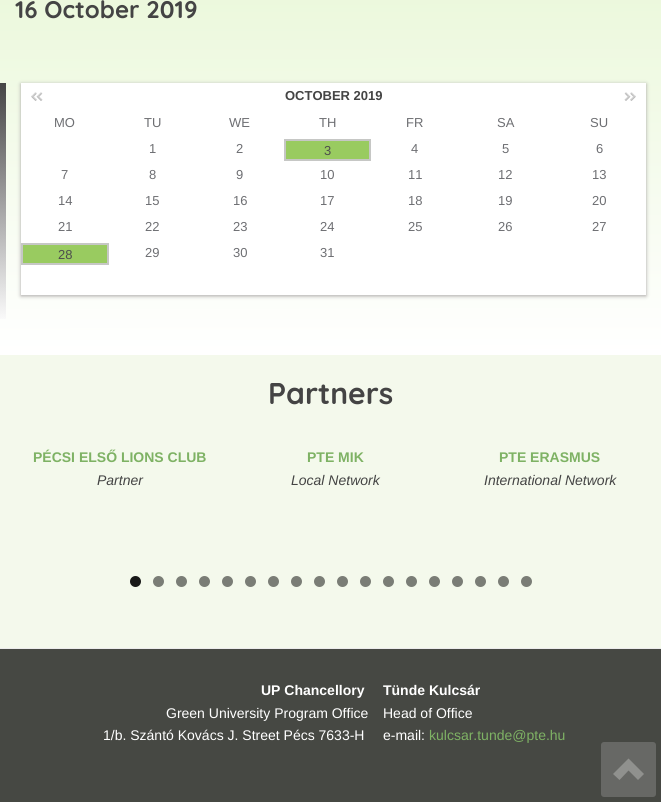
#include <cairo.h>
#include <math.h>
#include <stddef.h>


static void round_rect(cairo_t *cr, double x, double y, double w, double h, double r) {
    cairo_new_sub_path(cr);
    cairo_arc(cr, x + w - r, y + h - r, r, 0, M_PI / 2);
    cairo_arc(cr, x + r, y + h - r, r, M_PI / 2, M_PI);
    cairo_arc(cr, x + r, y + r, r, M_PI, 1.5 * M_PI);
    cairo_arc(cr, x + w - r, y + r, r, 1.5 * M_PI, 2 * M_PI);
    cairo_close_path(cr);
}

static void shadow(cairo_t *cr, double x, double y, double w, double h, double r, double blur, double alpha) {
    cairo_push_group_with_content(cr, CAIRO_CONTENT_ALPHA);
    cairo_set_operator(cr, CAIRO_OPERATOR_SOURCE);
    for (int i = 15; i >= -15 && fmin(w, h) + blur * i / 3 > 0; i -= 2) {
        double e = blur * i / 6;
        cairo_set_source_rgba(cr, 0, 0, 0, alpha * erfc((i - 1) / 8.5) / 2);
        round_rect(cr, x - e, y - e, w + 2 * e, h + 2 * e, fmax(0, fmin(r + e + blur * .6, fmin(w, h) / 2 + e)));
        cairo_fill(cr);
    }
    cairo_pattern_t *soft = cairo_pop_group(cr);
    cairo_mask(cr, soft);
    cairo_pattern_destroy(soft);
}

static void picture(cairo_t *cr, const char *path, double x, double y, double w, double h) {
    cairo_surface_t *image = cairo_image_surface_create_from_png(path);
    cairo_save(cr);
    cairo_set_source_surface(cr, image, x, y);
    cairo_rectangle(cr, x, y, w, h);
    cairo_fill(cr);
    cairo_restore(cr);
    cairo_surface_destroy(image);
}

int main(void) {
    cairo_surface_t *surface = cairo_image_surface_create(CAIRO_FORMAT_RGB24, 661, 802);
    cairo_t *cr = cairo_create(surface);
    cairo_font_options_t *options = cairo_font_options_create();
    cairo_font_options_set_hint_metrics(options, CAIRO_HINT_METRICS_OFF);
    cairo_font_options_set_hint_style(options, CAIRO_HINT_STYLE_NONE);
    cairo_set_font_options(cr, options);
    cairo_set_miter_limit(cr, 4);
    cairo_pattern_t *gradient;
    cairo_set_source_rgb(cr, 0.957, 0.976, 0.922);
    cairo_paint(cr);
    gradient = cairo_pattern_create_linear(330, -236, 331, 355);
    cairo_pattern_add_color_stop_rgba(gradient, 0, 0.875, 0.957, 0.776, 1);
    cairo_pattern_add_color_stop_rgba(gradient, 1, 1, 1, 1, 1);
    cairo_set_source(cr, gradient);
    cairo_pattern_destroy(gradient);
    cairo_rectangle(cr, 0, 0, 661, 355);
    cairo_fill(cr);
    cairo_select_font_face(cr, "Quicksand", CAIRO_FONT_SLANT_NORMAL, CAIRO_FONT_WEIGHT_BOLD);
    cairo_set_font_size(cr, 24);
    cairo_set_source_rgb(cr, 0.267, 0.267, 0.267);
    cairo_move_to(cr, 15, 18);
    cairo_show_text(cr, "16 October 2019");
    picture(cr, "img1.png", 0, 83, 6, 236);
    cairo_set_source_rgb(cr, 0.655, 0.639, 0.639);
    shadow(cr, 21, 84, 625, 212, 0, 2, 1);
    cairo_set_source_rgb(cr, 1, 1, 1);
    cairo_rectangle(cr, 21, 83, 625, 212);
    cairo_fill(cr);
    picture(cr, "img2.png", 31, 92, 12, 9);
    cairo_select_font_face(cr, "Liberation Sans", CAIRO_FONT_SLANT_NORMAL, CAIRO_FONT_WEIGHT_BOLD);
    cairo_set_font_size(cr, 13);
    cairo_set_source_rgb(cr, 0.267, 0.267, 0.267);
    cairo_move_to(cr, 285, 100);
    cairo_show_text(cr, "OCTOBER 2019");
    picture(cr, "img3.png", 624, 92, 12, 9);
    cairo_select_font_face(cr, "Liberation Sans", CAIRO_FONT_SLANT_NORMAL, CAIRO_FONT_WEIGHT_NORMAL);
    cairo_set_source_rgb(cr, 0.427, 0.431, 0.447);
    cairo_move_to(cr, 54, 127);
    cairo_show_text(cr, "MO");
    cairo_move_to(cr, 144, 127);
    cairo_show_text(cr, "TU");
    cairo_move_to(cr, 229, 127);
    cairo_show_text(cr, "WE");
    cairo_move_to(cr, 319, 127);
    cairo_show_text(cr, "TH");
    cairo_move_to(cr, 406, 127);
    cairo_show_text(cr, "FR");
    cairo_move_to(cr, 497, 127);
    cairo_show_text(cr, "SA");
    cairo_move_to(cr, 590, 127);
    cairo_show_text(cr, "SU");
    cairo_move_to(cr, 149, 153);
    cairo_show_text(cr, "1");
    cairo_move_to(cr, 236, 153);
    cairo_show_text(cr, "2");
    cairo_set_source_rgb(cr, 0.6, 0.796, 0.376);
    cairo_rectangle(cr, 286, 141, 83, 18);
    cairo_fill(cr);
    cairo_rectangle(cr, 284.5, 139.5, 86, 21);
    cairo_set_source_rgb(cr, 0.776, 0.78, 0.773);
    cairo_set_line_width(cr, 1);
    cairo_stroke(cr);
    cairo_rectangle(cr, 285.5, 140.5, 84, 19);
    cairo_stroke(cr);
    cairo_set_source_rgb(cr, 0.302, 0.306, 0.302);
    cairo_move_to(cr, 324, 155);
    cairo_show_text(cr, "3");
    cairo_set_source_rgb(cr, 0.427, 0.431, 0.447);
    cairo_move_to(cr, 411, 153);
    cairo_show_text(cr, "4");
    cairo_move_to(cr, 502, 153);
    cairo_show_text(cr, "5");
    cairo_move_to(cr, 596, 153);
    cairo_show_text(cr, "6");
    cairo_move_to(cr, 61, 179);
    cairo_show_text(cr, "7");
    cairo_move_to(cr, 149, 179);
    cairo_show_text(cr, "8");
    cairo_move_to(cr, 236, 179);
    cairo_show_text(cr, "9");
    cairo_move_to(cr, 320, 179);
    cairo_show_text(cr, "10");
    cairo_move_to(cr, 408, 179);
    cairo_show_text(cr, "11");
    cairo_move_to(cr, 498, 179);
    cairo_show_text(cr, "12");
    cairo_move_to(cr, 592, 179);
    cairo_show_text(cr, "13");
    cairo_move_to(cr, 58, 205);
    cairo_show_text(cr, "14");
    cairo_move_to(cr, 145, 205);
    cairo_show_text(cr, "15");
    cairo_move_to(cr, 233, 205);
    cairo_show_text(cr, "16");
    cairo_move_to(cr, 320, 205);
    cairo_show_text(cr, "17");
    cairo_move_to(cr, 408, 205);
    cairo_show_text(cr, "18");
    cairo_move_to(cr, 498, 205);
    cairo_show_text(cr, "19");
    cairo_move_to(cr, 592, 205);
    cairo_show_text(cr, "20");
    cairo_move_to(cr, 58, 231);
    cairo_show_text(cr, "21");
    cairo_move_to(cr, 145, 231);
    cairo_show_text(cr, "22");
    cairo_move_to(cr, 233, 231);
    cairo_show_text(cr, "23");
    cairo_move_to(cr, 320, 231);
    cairo_show_text(cr, "24");
    cairo_move_to(cr, 408, 231);
    cairo_show_text(cr, "25");
    cairo_move_to(cr, 498, 231);
    cairo_show_text(cr, "26");
    cairo_move_to(cr, 592, 231);
    cairo_show_text(cr, "27");
    cairo_set_source_rgb(cr, 0.6, 0.796, 0.376);
    cairo_rectangle(cr, 23, 245, 84, 18);
    cairo_fill(cr);
    cairo_rectangle(cr, 21.5, 243.5, 87, 21);
    cairo_set_source_rgb(cr, 0.776, 0.78, 0.773);
    cairo_stroke(cr);
    cairo_rectangle(cr, 22.5, 244.5, 85, 19);
    cairo_stroke(cr);
    cairo_set_source_rgb(cr, 0.302, 0.306, 0.302);
    cairo_move_to(cr, 58, 259);
    cairo_show_text(cr, "28");
    cairo_set_source_rgb(cr, 0.427, 0.431, 0.447);
    cairo_move_to(cr, 145, 257);
    cairo_show_text(cr, "29");
    cairo_move_to(cr, 233, 257);
    cairo_show_text(cr, "30");
    cairo_move_to(cr, 320, 257);
    cairo_show_text(cr, "31");
    cairo_select_font_face(cr, "Quicksand", CAIRO_FONT_SLANT_NORMAL, CAIRO_FONT_WEIGHT_BOLD);
    cairo_set_font_size(cr, 30);
    cairo_set_source_rgb(cr, 0.267, 0.267, 0.267);
    cairo_move_to(cr, 268, 404);
    cairo_show_text(cr, "Partners");
    cairo_select_font_face(cr, "Liberation Sans", CAIRO_FONT_SLANT_NORMAL, CAIRO_FONT_WEIGHT_BOLD);
    cairo_set_font_size(cr, 14);
    cairo_set_source_rgb(cr, 0.494, 0.698, 0.392);
    cairo_move_to(cr, 33, 462);
    cairo_show_text(cr, "PÉCSI ELSŐ LIONS CLUB");
    cairo_select_font_face(cr, "Liberation Sans", CAIRO_FONT_SLANT_ITALIC, CAIRO_FONT_WEIGHT_NORMAL);
    cairo_set_source_rgb(cr, 0.267, 0.267, 0.267);
    cairo_move_to(cr, 97, 485);
    cairo_show_text(cr, "Partner");
    cairo_select_font_face(cr, "Liberation Sans", CAIRO_FONT_SLANT_NORMAL, CAIRO_FONT_WEIGHT_BOLD);
    cairo_set_source_rgb(cr, 0.494, 0.698, 0.392);
    cairo_move_to(cr, 307, 462);
    cairo_show_text(cr, "PTE MIK");
    cairo_select_font_face(cr, "Liberation Sans", CAIRO_FONT_SLANT_ITALIC, CAIRO_FONT_WEIGHT_NORMAL);
    cairo_set_source_rgb(cr, 0.267, 0.267, 0.267);
    cairo_move_to(cr, 291, 485);
    cairo_show_text(cr, "Local Network");
    cairo_select_font_face(cr, "Liberation Sans", CAIRO_FONT_SLANT_NORMAL, CAIRO_FONT_WEIGHT_BOLD);
    cairo_set_source_rgb(cr, 0.494, 0.698, 0.392);
    cairo_move_to(cr, 499, 462);
    cairo_show_text(cr, "PTE ERASMUS");
    cairo_select_font_face(cr, "Liberation Sans", CAIRO_FONT_SLANT_ITALIC, CAIRO_FONT_WEIGHT_NORMAL);
    cairo_set_source_rgb(cr, 0.267, 0.267, 0.267);
    cairo_move_to(cr, 484, 485);
    cairo_show_text(cr, "International Network");
    cairo_set_source_rgb(cr, 0.094, 0.098, 0.094);
    cairo_new_path(cr);
    cairo_arc(cr, 135.5, 581.5, 5.5, 0, 2 * M_PI);
    cairo_fill(cr);
    cairo_set_source_rgb(cr, 0.478, 0.49, 0.463);
    cairo_arc(cr, 158.5, 581.5, 5.5, 0, 2 * M_PI);
    cairo_fill(cr);
    cairo_arc(cr, 181.5, 581.5, 5.5, 0, 2 * M_PI);
    cairo_fill(cr);
    cairo_arc(cr, 204.5, 581.5, 5.5, 0, 2 * M_PI);
    cairo_fill(cr);
    cairo_arc(cr, 227.5, 581.5, 5.5, 0, 2 * M_PI);
    cairo_fill(cr);
    cairo_arc(cr, 250.5, 581.5, 5.5, 0, 2 * M_PI);
    cairo_fill(cr);
    cairo_arc(cr, 273.5, 581.5, 5.5, 0, 2 * M_PI);
    cairo_fill(cr);
    cairo_arc(cr, 296.5, 581.5, 5.5, 0, 2 * M_PI);
    cairo_fill(cr);
    cairo_arc(cr, 319.5, 581.5, 5.5, 0, 2 * M_PI);
    cairo_fill(cr);
    cairo_arc(cr, 342.5, 581.5, 5.5, 0, 2 * M_PI);
    cairo_fill(cr);
    cairo_arc(cr, 365.5, 581.5, 5.5, 0, 2 * M_PI);
    cairo_fill(cr);
    cairo_arc(cr, 388.5, 581.5, 5.5, 0, 2 * M_PI);
    cairo_fill(cr);
    cairo_arc(cr, 411.5, 581.5, 5.5, 0, 2 * M_PI);
    cairo_fill(cr);
    cairo_arc(cr, 434.5, 581.5, 5.5, 0, 2 * M_PI);
    cairo_fill(cr);
    cairo_arc(cr, 457.5, 581.5, 5.5, 0, 2 * M_PI);
    cairo_fill(cr);
    cairo_arc(cr, 480.5, 581.5, 5.5, 0, 2 * M_PI);
    cairo_fill(cr);
    cairo_arc(cr, 503.5, 581.5, 5.5, 0, 2 * M_PI);
    cairo_fill(cr);
    cairo_arc(cr, 526.5, 581.5, 5.5, 0, 2 * M_PI);
    cairo_fill(cr);
    cairo_set_source_rgb(cr, 0.275, 0.282, 0.263);
    cairo_rectangle(cr, 0, 649, 661, 153);
    cairo_fill(cr);
    cairo_set_source_rgb(cr, 0.918, 0.918, 0.918);
    cairo_rectangle(cr, 0, 648, 661, 1);
    cairo_fill(cr);
    cairo_select_font_face(cr, "Liberation Sans", CAIRO_FONT_SLANT_NORMAL, CAIRO_FONT_WEIGHT_BOLD);
    cairo_set_source_rgb(cr, 1, 1, 1);
    cairo_move_to(cr, 261, 695);
    cairo_show_text(cr, "UP Chancellory");
    cairo_select_font_face(cr, "Liberation Sans", CAIRO_FONT_SLANT_NORMAL, CAIRO_FONT_WEIGHT_NORMAL);
    cairo_move_to(cr, 166, 718);
    cairo_show_text(cr, "Green University Program Office");
    cairo_move_to(cr, 103, 740);
    cairo_show_text(cr, "1/b. Szántó Kovács J. Street Pécs 7633-H");
    cairo_select_font_face(cr, "Liberation Sans", CAIRO_FONT_SLANT_NORMAL, CAIRO_FONT_WEIGHT_BOLD);
    cairo_move_to(cr, 383, 695);
    cairo_show_text(cr, "Tünde Kulcsár");
    cairo_select_font_face(cr, "Liberation Sans", CAIRO_FONT_SLANT_NORMAL, CAIRO_FONT_WEIGHT_NORMAL);
    cairo_move_to(cr, 383, 718);
    cairo_show_text(cr, "Head of Office");
    cairo_move_to(cr, 383, 740);
    cairo_show_text(cr, "e-mail:");
    cairo_set_source_rgb(cr, 0.494, 0.698, 0.392);
    cairo_move_to(cr, 429, 740);
    cairo_show_text(cr, "kulcsar.tunde@pte.hu");
    cairo_set_source_rgb(cr, 0.404, 0.408, 0.396);
    round_rect(cr, 601, 742, 55, 55, 3);
    cairo_fill(cr);
    cairo_set_source_rgb(cr, 0.565, 0.569, 0.557);
    cairo_new_path(cr);
    cairo_move_to(cr, 613, 774);
    cairo_line_to(cr, 619.5, 780);
    cairo_line_to(cr, 628.5, 770.5);
    cairo_line_to(cr, 638, 780);
    cairo_line_to(cr, 644, 774);
    cairo_line_to(cr, 628.5, 758.5);
    cairo_close_path(cr);
    cairo_fill(cr);
    cairo_surface_write_to_png(surface, "page.png");
    cairo_font_options_destroy(options);
    cairo_destroy(cr);
    cairo_surface_destroy(surface);
    return 0;
}
